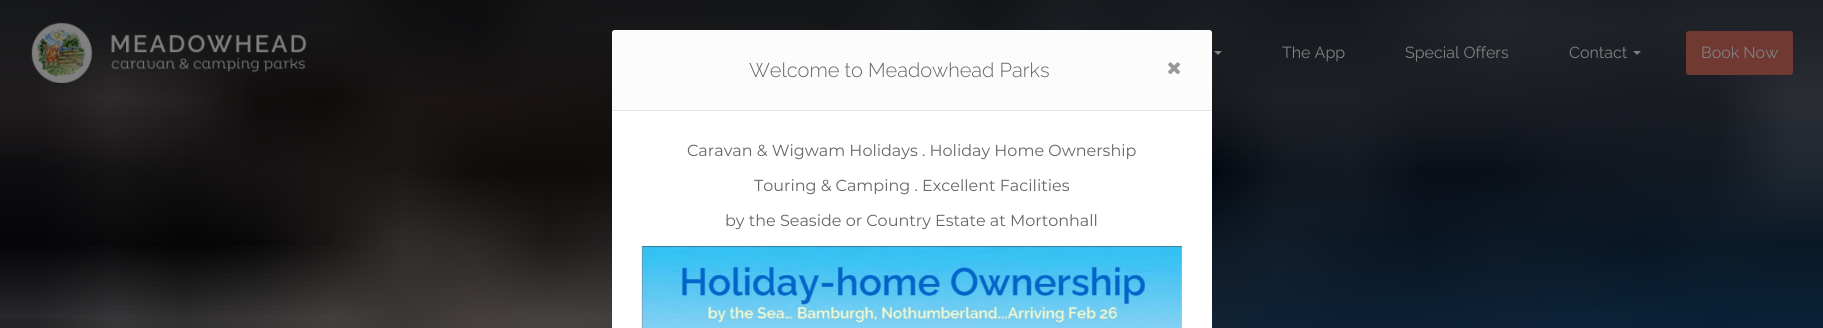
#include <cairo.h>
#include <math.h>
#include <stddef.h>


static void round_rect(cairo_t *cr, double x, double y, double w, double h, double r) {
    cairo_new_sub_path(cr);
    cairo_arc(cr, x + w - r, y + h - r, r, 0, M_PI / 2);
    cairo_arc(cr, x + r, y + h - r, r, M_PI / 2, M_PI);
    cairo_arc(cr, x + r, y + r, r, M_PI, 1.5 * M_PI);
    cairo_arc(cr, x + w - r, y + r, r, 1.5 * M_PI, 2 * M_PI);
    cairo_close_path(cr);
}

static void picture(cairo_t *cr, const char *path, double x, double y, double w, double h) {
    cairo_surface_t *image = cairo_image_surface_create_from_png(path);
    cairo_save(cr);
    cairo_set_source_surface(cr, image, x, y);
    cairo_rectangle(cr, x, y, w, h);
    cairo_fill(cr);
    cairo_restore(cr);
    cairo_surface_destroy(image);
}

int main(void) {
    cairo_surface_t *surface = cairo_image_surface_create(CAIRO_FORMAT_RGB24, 1823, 328);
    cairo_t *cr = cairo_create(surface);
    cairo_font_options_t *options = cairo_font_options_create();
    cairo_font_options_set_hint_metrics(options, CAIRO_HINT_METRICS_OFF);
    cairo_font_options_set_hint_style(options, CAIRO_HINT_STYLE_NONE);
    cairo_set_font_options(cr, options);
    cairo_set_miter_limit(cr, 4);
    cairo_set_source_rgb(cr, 1, 1, 1);
    cairo_paint(cr);
    picture(cr, "img1.png", 0, 0, 1823, 328);
    picture(cr, "img2.png", 31, 22, 276, 61);
    cairo_set_source_rgb(cr, 0.502, 0.502, 0.502);
    cairo_new_path(cr);
    cairo_move_to(cr, 1214, 51);
    cairo_line_to(cr, 1222, 51);
    cairo_line_to(cr, 1218, 55);
    cairo_close_path(cr);
    cairo_fill(cr);
    cairo_select_font_face(cr, "Raleway", CAIRO_FONT_SLANT_NORMAL, CAIRO_FONT_WEIGHT_NORMAL);
    cairo_set_font_size(cr, 16);
    cairo_move_to(cr, 1282, 58);
    cairo_show_text(cr, "The App");
    cairo_move_to(cr, 1405, 58);
    cairo_show_text(cr, "Special Offers");
    cairo_move_to(cr, 1569, 58);
    cairo_show_text(cr, "Contact");
    cairo_new_path(cr);
    cairo_move_to(cr, 1633, 51);
    cairo_line_to(cr, 1641, 51);
    cairo_line_to(cr, 1637, 55);
    cairo_close_path(cr);
    cairo_fill(cr);
    cairo_set_source_rgb(cr, 0.439, 0.224, 0.196);
    round_rect(cr, 1686, 31, 107, 44, 3);
    cairo_fill(cr);
    cairo_set_source_rgb(cr, 0.502, 0.502, 0.502);
    cairo_move_to(cr, 1701, 58);
    cairo_show_text(cr, "Book Now");
    cairo_set_source_rgb(cr, 1, 1, 1);
    cairo_new_path(cr);
    cairo_move_to(cr, 615, 30);
    cairo_line_to(cr, 1209, 30);
    cairo_curve_to(cr, 1210.5, 30, 1212, 31.5, 1212, 33);
    cairo_line_to(cr, 1212, 328);
    cairo_line_to(cr, 612, 328);
    cairo_line_to(cr, 612, 33);
    cairo_curve_to(cr, 612, 31.5, 613.5, 30, 615, 30);
    cairo_close_path(cr);
    cairo_fill(cr);
    cairo_set_source_rgb(cr, 0.988, 0.988, 0.988);
    cairo_new_path(cr);
    cairo_move_to(cr, 615, 30);
    cairo_line_to(cr, 1209, 30);
    cairo_curve_to(cr, 1210.5, 30, 1212, 31.5, 1212, 33);
    cairo_line_to(cr, 1212, 111);
    cairo_line_to(cr, 612, 111);
    cairo_line_to(cr, 612, 33);
    cairo_curve_to(cr, 612, 31.5, 613.5, 30, 615, 30);
    cairo_close_path(cr);
    cairo_fill(cr);
    cairo_set_source_rgb(cr, 0.898, 0.898, 0.898);
    cairo_rectangle(cr, 612, 110, 600, 1);
    cairo_fill(cr);
    cairo_select_font_face(cr, "Raleway Light", CAIRO_FONT_SLANT_NORMAL, CAIRO_FONT_WEIGHT_NORMAL);
    cairo_set_font_size(cr, 20);
    cairo_set_source_rgb(cr, 0.4, 0.4, 0.4);
    cairo_move_to(cr, 749, 77);
    cairo_show_text(cr, "Welcome to Meadowhead Parks");
    picture(cr, "img3.png", 1168, 62, 12, 13);
    cairo_select_font_face(cr, "Montserrat", CAIRO_FONT_SLANT_NORMAL, CAIRO_FONT_WEIGHT_NORMAL);
    cairo_set_font_size(cr, 16);
    cairo_move_to(cr, 687, 156);
    cairo_show_text(cr, "Caravan & Wigwam Holidays . Holiday Home Ownership");
    cairo_move_to(cr, 754, 191);
    cairo_show_text(cr, "Touring & Camping . Excellent Facilities");
    cairo_move_to(cr, 725, 226);
    cairo_show_text(cr, "by the Seaside or Country Estate at Mortonhall");
    picture(cr, "img4.png", 641, 246, 541, 82);
    cairo_surface_write_to_png(surface, "page.png");
    cairo_font_options_destroy(options);
    cairo_destroy(cr);
    cairo_surface_destroy(surface);
    return 0;
}
